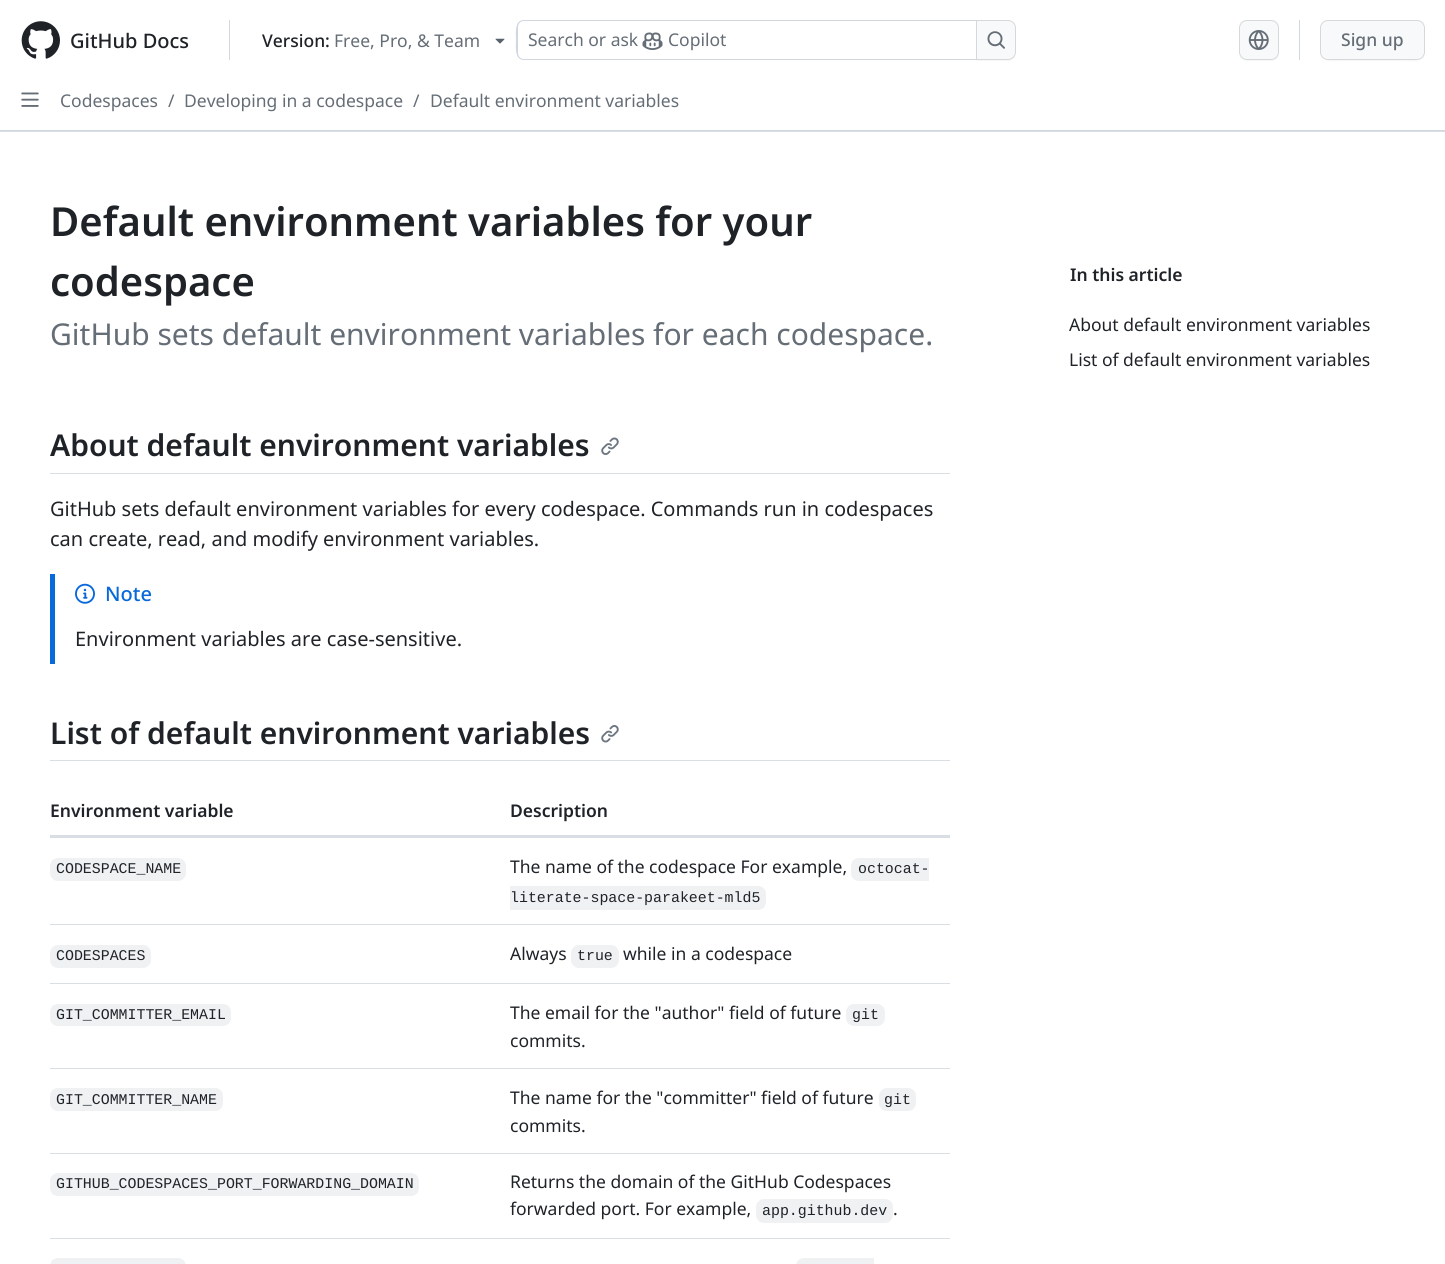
#include <cairo.h>
#include <math.h>
#include <stddef.h>


static void round_rect(cairo_t *cr, double x, double y, double w, double h, double r) {
    cairo_new_sub_path(cr);
    cairo_arc(cr, x + w - r, y + h - r, r, 0, M_PI / 2);
    cairo_arc(cr, x + r, y + h - r, r, M_PI / 2, M_PI);
    cairo_arc(cr, x + r, y + r, r, M_PI, 1.5 * M_PI);
    cairo_arc(cr, x + w - r, y + r, r, 1.5 * M_PI, 2 * M_PI);
    cairo_close_path(cr);
}

static void picture(cairo_t *cr, const char *path, double x, double y, double w, double h) {
    cairo_surface_t *image = cairo_image_surface_create_from_png(path);
    cairo_save(cr);
    cairo_set_source_surface(cr, image, x, y);
    cairo_rectangle(cr, x, y, w, h);
    cairo_fill(cr);
    cairo_restore(cr);
    cairo_surface_destroy(image);
}

int main(void) {
    cairo_surface_t *surface = cairo_image_surface_create(CAIRO_FORMAT_RGB24, 1445, 1264);
    cairo_t *cr = cairo_create(surface);
    cairo_font_options_t *options = cairo_font_options_create();
    cairo_font_options_set_hint_metrics(options, CAIRO_HINT_METRICS_OFF);
    cairo_font_options_set_hint_style(options, CAIRO_HINT_STYLE_NONE);
    cairo_set_font_options(cr, options);
    cairo_set_miter_limit(cr, 4);
    cairo_set_source_rgb(cr, 1, 1, 1);
    cairo_paint(cr);
    cairo_set_source_rgb(cr, 0.847, 0.871, 0.894);
    cairo_rectangle(cr, 0, 131, 1445, 1);
    cairo_fill(cr);
    cairo_set_source_rgb(cr, 0.816, 0.843, 0.871);
    cairo_rectangle(cr, 0, 130, 1445, 1);
    cairo_fill(cr);
    picture(cr, "img1.png", 21, 21, 39, 38);
    cairo_select_font_face(cr, "Noto Sans Medium", CAIRO_FONT_SLANT_NORMAL, CAIRO_FONT_WEIGHT_NORMAL);
    cairo_set_font_size(cr, 20);
    cairo_set_source_rgb(cr, 0.122, 0.137, 0.157);
    cairo_move_to(cr, 70, 48);
    cairo_show_text(cr, "GitHub Docs");
    cairo_set_source_rgb(cr, 0.816, 0.843, 0.871);
    cairo_rectangle(cr, 229, 20, 1, 40);
    cairo_fill(cr);
    cairo_set_font_size(cr, 17.5);
    cairo_set_source_rgb(cr, 0.122, 0.137, 0.157);
    cairo_move_to(cr, 262, 47);
    cairo_show_text(cr, "Version:");
    cairo_select_font_face(cr, "Noto Sans", CAIRO_FONT_SLANT_NORMAL, CAIRO_FONT_WEIGHT_NORMAL);
    cairo_set_source_rgb(cr, 0.396, 0.427, 0.463);
    cairo_move_to(cr, 334, 47);
    cairo_show_text(cr, "Free, Pro, & Team");
    picture(cr, "img2.png", 495, 38, 10, 6);
    cairo_set_source_rgb(cr, 0.816, 0.843, 0.871);
    cairo_set_fill_rule(cr, CAIRO_FILL_RULE_EVEN_ODD);
    cairo_new_path(cr);
    cairo_move_to(cr, 524, 20);
    cairo_line_to(cr, 976, 20);
    cairo_line_to(cr, 976, 60);
    cairo_line_to(cr, 524, 60);
    cairo_curve_to(cr, 514, 60, 516, 46, 516, 40);
    cairo_curve_to(cr, 516, 34, 514, 20, 524, 20);
    cairo_close_path(cr);
    cairo_move_to(cr, 524, 21);
    cairo_line_to(cr, 976, 21);
    cairo_line_to(cr, 976, 59);
    cairo_line_to(cr, 524, 59);
    cairo_curve_to(cr, 520, 59, 518, 56, 518, 52);
    cairo_line_to(cr, 518, 28);
    cairo_curve_to(cr, 518, 24, 520, 21, 524, 21);
    cairo_close_path(cr);
    cairo_fill(cr);
    cairo_set_source_rgb(cr, 0.396, 0.427, 0.463);
    cairo_move_to(cr, 528, 46);
    cairo_show_text(cr, "Search or ask");
    picture(cr, "img3.png", 642, 32, 21, 18);
    cairo_move_to(cr, 668, 46);
    cairo_show_text(cr, "Copilot");
    cairo_set_source_rgb(cr, 0.965, 0.965, 0.965);
    cairo_set_fill_rule(cr, CAIRO_FILL_RULE_WINDING);
    cairo_new_path(cr);
    cairo_move_to(cr, 976, 21);
    cairo_line_to(cr, 976, 61);
    cairo_line_to(cr, 1008, 61);
    cairo_curve_to(cr, 1011, 61, 1014, 59, 1016, 56);
    cairo_curve_to(cr, 1014, 58, 1012, 60, 1009, 60);
    cairo_line_to(cr, 976, 60);
    cairo_close_path(cr);
    cairo_fill(cr);
    cairo_set_source_rgb(cr, 0.965, 0.973, 0.98);
    cairo_new_path(cr);
    cairo_move_to(cr, 976, 20);
    cairo_line_to(cr, 1008, 20);
    cairo_curve_to(cr, 1012.5, 20, 1016, 23.5, 1016, 28);
    cairo_line_to(cr, 1016, 52);
    cairo_curve_to(cr, 1016, 56.5, 1012.5, 60, 1008, 60);
    cairo_line_to(cr, 976, 60);
    cairo_close_path(cr);
    cairo_fill(cr);
    cairo_new_path(cr);
    cairo_move_to(cr, 976.5, 20.5);
    cairo_line_to(cr, 1008, 20.5);
    cairo_curve_to(cr, 1012, 20.5, 1015.5, 24, 1015.5, 28);
    cairo_line_to(cr, 1015.5, 52);
    cairo_curve_to(cr, 1015.5, 56, 1012, 59.5, 1008, 59.5);
    cairo_line_to(cr, 976.5, 59.5);
    cairo_close_path(cr);
    cairo_set_source_rgba(cr, 0.122, 0.137, 0.157, 0.15);
    cairo_set_line_width(cr, 1);
    cairo_stroke(cr);
    picture(cr, "img4.png", 987, 31, 18, 18);
    cairo_set_source_rgb(cr, 0.965, 0.965, 0.965);
    cairo_new_path(cr);
    cairo_move_to(cr, 1239.5, 55.5);
    cairo_curve_to(cr, 1240.5, 59, 1243.5, 61, 1247, 61);
    cairo_line_to(cr, 1271, 61);
    cairo_curve_to(cr, 1275.5, 61, 1279, 57.5, 1279, 53);
    cairo_line_to(cr, 1279, 29);
    cairo_line_to(cr, 1278.5, 27);
    cairo_line_to(cr, 1278.5, 54);
    cairo_curve_to(cr, 1277.5, 60, 1272, 60, 1267, 60);
    cairo_line_to(cr, 1254.5, 60);
    cairo_curve_to(cr, 1249.5, 60, 1242, 61.5, 1239.5, 55.5);
    cairo_close_path(cr);
    cairo_fill(cr);
    cairo_set_source_rgb(cr, 0.965, 0.973, 0.98);
    round_rect(cr, 1239, 20, 40, 40, 8);
    cairo_fill(cr);
    round_rect(cr, 1239.5, 20.5, 39, 39, 7.5);
    cairo_set_source_rgba(cr, 0.122, 0.137, 0.157, 0.15);
    cairo_stroke(cr);
    picture(cr, "img5.png", 1248, 30, 21, 20);
    cairo_set_source_rgb(cr, 0.816, 0.843, 0.871);
    cairo_rectangle(cr, 1299, 20, 1, 40);
    cairo_fill(cr);
    cairo_set_source_rgb(cr, 0.965, 0.965, 0.965);
    cairo_new_path(cr);
    cairo_move_to(cr, 1320, 52);
    cairo_curve_to(cr, 1320, 64, 1336, 61, 1343, 61);
    cairo_line_to(cr, 1402, 61);
    cairo_curve_to(cr, 1409, 61, 1425, 64, 1425, 52);
    cairo_curve_to(cr, 1425, 57, 1422, 60, 1418, 60);
    cairo_line_to(cr, 1328, 60);
    cairo_curve_to(cr, 1323, 60, 1320, 57, 1320, 52);
    cairo_close_path(cr);
    cairo_fill(cr);
    cairo_set_source_rgb(cr, 0.965, 0.973, 0.98);
    round_rect(cr, 1320, 20, 105, 40, 8);
    cairo_fill(cr);
    round_rect(cr, 1320.5, 20.5, 104, 39, 7.5);
    cairo_set_source_rgba(cr, 0.122, 0.137, 0.157, 0.15);
    cairo_stroke(cr);
    cairo_select_font_face(cr, "Noto Sans Medium", CAIRO_FONT_SLANT_NORMAL, CAIRO_FONT_WEIGHT_NORMAL);
    cairo_set_source_rgb(cr, 0.396, 0.427, 0.463);
    cairo_move_to(cr, 1341, 46);
    cairo_show_text(cr, "Sign up");
    picture(cr, "img6.png", 21, 92, 18, 15);
    cairo_select_font_face(cr, "Noto Sans", CAIRO_FONT_SLANT_NORMAL, CAIRO_FONT_WEIGHT_NORMAL);
    cairo_move_to(cr, 60, 107);
    cairo_show_text(cr, "Codespaces");
    cairo_move_to(cr, 168, 107);
    cairo_show_text(cr, "/");
    cairo_move_to(cr, 184, 107);
    cairo_show_text(cr, "Developing in a codespace");
    cairo_move_to(cr, 413, 107);
    cairo_show_text(cr, "/");
    cairo_move_to(cr, 430, 107);
    cairo_show_text(cr, "Default environment variables");
    cairo_select_font_face(cr, "Noto Sans SemiBold", CAIRO_FONT_SLANT_NORMAL, CAIRO_FONT_WEIGHT_NORMAL);
    cairo_set_font_size(cr, 40);
    cairo_set_source_rgb(cr, 0.122, 0.137, 0.157);
    cairo_move_to(cr, 50, 236);
    cairo_show_text(cr, "Default environment variables for your");
    cairo_move_to(cr, 50, 296);
    cairo_show_text(cr, "codespace");
    cairo_select_font_face(cr, "Noto Sans", CAIRO_FONT_SLANT_NORMAL, CAIRO_FONT_WEIGHT_NORMAL);
    cairo_set_font_size(cr, 30);
    cairo_set_source_rgb(cr, 0.396, 0.427, 0.463);
    cairo_move_to(cr, 50, 345);
    cairo_show_text(cr, "GitHub sets default environment variables for each codespace.");
    cairo_select_font_face(cr, "Noto Sans SemiBold", CAIRO_FONT_SLANT_NORMAL, CAIRO_FONT_WEIGHT_NORMAL);
    cairo_set_font_size(cr, 17.5);
    cairo_set_source_rgb(cr, 0.122, 0.137, 0.157);
    cairo_move_to(cr, 1070, 281);
    cairo_show_text(cr, "In this article");
    cairo_select_font_face(cr, "Noto Sans", CAIRO_FONT_SLANT_NORMAL, CAIRO_FONT_WEIGHT_NORMAL);
    cairo_move_to(cr, 1069, 331);
    cairo_show_text(cr, "About default environment variables");
    cairo_move_to(cr, 1069, 366);
    cairo_show_text(cr, "List of default environment variables");
    cairo_set_source_rgb(cr, 0.847, 0.871, 0.894);
    cairo_rectangle(cr, 50, 473, 900, 1);
    cairo_fill(cr);
    cairo_select_font_face(cr, "Noto Sans SemiBold", CAIRO_FONT_SLANT_NORMAL, CAIRO_FONT_WEIGHT_NORMAL);
    cairo_set_font_size(cr, 30);
    cairo_set_source_rgb(cr, 0.122, 0.137, 0.157);
    cairo_move_to(cr, 50, 456);
    cairo_show_text(cr, "About default environment variables");
    picture(cr, "img7.png", 601, 437, 18, 18);
    cairo_select_font_face(cr, "Noto Sans", CAIRO_FONT_SLANT_NORMAL, CAIRO_FONT_WEIGHT_NORMAL);
    cairo_set_font_size(cr, 20);
    cairo_move_to(cr, 50, 516);
    cairo_show_text(cr, "GitHub sets default environment variables for every codespace. Commands run in codespaces");
    cairo_move_to(cr, 50, 546);
    cairo_show_text(cr, "can create, read, and modify environment variables.");
    cairo_set_source_rgb(cr, 0.035, 0.412, 0.855);
    cairo_rectangle(cr, 50, 574, 5, 90);
    cairo_fill(cr);
    picture(cr, "img8.png", 75, 583, 20, 21);
    cairo_select_font_face(cr, "Noto Sans Medium", CAIRO_FONT_SLANT_NORMAL, CAIRO_FONT_WEIGHT_NORMAL);
    cairo_move_to(cr, 105, 601);
    cairo_show_text(cr, "Note");
    cairo_select_font_face(cr, "Noto Sans", CAIRO_FONT_SLANT_NORMAL, CAIRO_FONT_WEIGHT_NORMAL);
    cairo_set_source_rgb(cr, 0.122, 0.137, 0.157);
    cairo_move_to(cr, 75, 646);
    cairo_show_text(cr, "Environment variables are case-sensitive.");
    cairo_set_source_rgb(cr, 0.847, 0.871, 0.894);
    cairo_rectangle(cr, 50, 760, 900, 1);
    cairo_fill(cr);
    cairo_select_font_face(cr, "Noto Sans SemiBold", CAIRO_FONT_SLANT_NORMAL, CAIRO_FONT_WEIGHT_NORMAL);
    cairo_set_font_size(cr, 30);
    cairo_set_source_rgb(cr, 0.122, 0.137, 0.157);
    cairo_move_to(cr, 50, 744);
    cairo_show_text(cr, "List of default environment variables");
    picture(cr, "img9.png", 601, 725, 18, 18);
    cairo_set_source_rgb(cr, 0.847, 0.871, 0.894);
    cairo_rectangle(cr, 50, 835, 900, 3);
    cairo_fill(cr);
    cairo_set_font_size(cr, 17.5);
    cairo_set_source_rgb(cr, 0.122, 0.137, 0.157);
    cairo_move_to(cr, 50, 817);
    cairo_show_text(cr, "Environment variable");
    cairo_move_to(cr, 510, 817);
    cairo_show_text(cr, "Description");
    cairo_set_source_rgb(cr, 0.847, 0.871, 0.894);
    cairo_rectangle(cr, 50, 924, 900, 1);
    cairo_fill(cr);
    cairo_set_source_rgb(cr, 0.937, 0.945, 0.953);
    round_rect(cr, 50, 858, 136, 23, 8);
    cairo_fill(cr);
    cairo_select_font_face(cr, "Liberation Mono", CAIRO_FONT_SLANT_NORMAL, CAIRO_FONT_WEIGHT_NORMAL);
    cairo_set_font_size(cr, 14.9);
    cairo_set_source_rgb(cr, 0.122, 0.137, 0.157);
    cairo_move_to(cr, 56, 873);
    cairo_show_text(cr, "CODESPACE_NAME");
    cairo_select_font_face(cr, "Noto Sans", CAIRO_FONT_SLANT_NORMAL, CAIRO_FONT_WEIGHT_NORMAL);
    cairo_set_font_size(cr, 17.5);
    cairo_move_to(cr, 510, 873);
    cairo_show_text(cr, "The name of the codespace For example,");
    cairo_set_source_rgb(cr, 0.937, 0.945, 0.953);
    cairo_new_path(cr);
    cairo_move_to(cr, 859, 858);
    cairo_line_to(cr, 929, 858);
    cairo_line_to(cr, 929, 881);
    cairo_line_to(cr, 859, 881);
    cairo_curve_to(cr, 854.5, 881, 851, 877.5, 851, 873);
    cairo_line_to(cr, 851, 866);
    cairo_curve_to(cr, 851, 861.5, 854.5, 858, 859, 858);
    cairo_close_path(cr);
    cairo_fill(cr);
    cairo_select_font_face(cr, "Liberation Mono", CAIRO_FONT_SLANT_NORMAL, CAIRO_FONT_WEIGHT_NORMAL);
    cairo_set_font_size(cr, 14.9);
    cairo_set_source_rgb(cr, 0.122, 0.137, 0.157);
    cairo_move_to(cr, 858, 873);
    cairo_show_text(cr, "octocat-");
    cairo_set_source_rgb(cr, 0.937, 0.945, 0.953);
    cairo_new_path(cr);
    cairo_move_to(cr, 510, 886);
    cairo_line_to(cr, 758, 886);
    cairo_curve_to(cr, 762.5, 886, 766, 889.5, 766, 894);
    cairo_line_to(cr, 766, 902);
    cairo_curve_to(cr, 766, 906.5, 762.5, 910, 758, 910);
    cairo_line_to(cr, 510, 910);
    cairo_close_path(cr);
    cairo_fill(cr);
    cairo_set_source_rgb(cr, 0.122, 0.137, 0.157);
    cairo_move_to(cr, 510, 902);
    cairo_show_text(cr, "literate-space-parakeet-mld5");
    cairo_set_source_rgb(cr, 0.847, 0.871, 0.894);
    cairo_rectangle(cr, 50, 983, 900, 1);
    cairo_fill(cr);
    cairo_set_source_rgb(cr, 0.937, 0.945, 0.953);
    round_rect(cr, 50, 945, 101, 23, 8);
    cairo_fill(cr);
    cairo_set_source_rgb(cr, 0.122, 0.137, 0.157);
    cairo_move_to(cr, 56, 960);
    cairo_show_text(cr, "CODESPACES");
    cairo_select_font_face(cr, "Noto Sans", CAIRO_FONT_SLANT_NORMAL, CAIRO_FONT_WEIGHT_NORMAL);
    cairo_set_font_size(cr, 17.5);
    cairo_move_to(cr, 510, 960);
    cairo_show_text(cr, "Always");
    cairo_set_source_rgb(cr, 0.937, 0.945, 0.953);
    round_rect(cr, 571, 945, 48, 23, 8);
    cairo_fill(cr);
    cairo_select_font_face(cr, "Liberation Mono", CAIRO_FONT_SLANT_NORMAL, CAIRO_FONT_WEIGHT_NORMAL);
    cairo_set_font_size(cr, 14.9);
    cairo_set_source_rgb(cr, 0.122, 0.137, 0.157);
    cairo_move_to(cr, 577, 960);
    cairo_show_text(cr, "true");
    cairo_select_font_face(cr, "Noto Sans", CAIRO_FONT_SLANT_NORMAL, CAIRO_FONT_WEIGHT_NORMAL);
    cairo_set_font_size(cr, 17.5);
    cairo_move_to(cr, 623, 960);
    cairo_show_text(cr, "while in a codespace");
    cairo_set_source_rgb(cr, 0.847, 0.871, 0.894);
    cairo_rectangle(cr, 50, 1068, 900, 1);
    cairo_fill(cr);
    cairo_set_source_rgb(cr, 0.937, 0.945, 0.953);
    cairo_new_path(cr);
    cairo_move_to(cr, 58, 1004);
    cairo_line_to(cr, 181, 1004);
    cairo_line_to(cr, 181, 1026);
    cairo_line_to(cr, 58, 1026);
    cairo_curve_to(cr, 53.5, 1026, 50, 1022.5, 50, 1018);
    cairo_line_to(cr, 50, 1012);
    cairo_curve_to(cr, 50, 1007.5, 53.5, 1004, 58, 1004);
    cairo_close_path(cr);
    cairo_fill(cr);
    cairo_new_path(cr);
    cairo_move_to(cr, 181, 1004);
    cairo_line_to(cr, 223, 1004);
    cairo_curve_to(cr, 227.5, 1004, 231, 1007.5, 231, 1012);
    cairo_line_to(cr, 231, 1018);
    cairo_curve_to(cr, 231, 1022.5, 227.5, 1026, 223, 1026);
    cairo_line_to(cr, 181, 1026);
    cairo_close_path(cr);
    cairo_fill(cr);
    cairo_select_font_face(cr, "Liberation Mono", CAIRO_FONT_SLANT_NORMAL, CAIRO_FONT_WEIGHT_NORMAL);
    cairo_set_font_size(cr, 14.9);
    cairo_set_source_rgb(cr, 0.122, 0.137, 0.157);
    cairo_move_to(cr, 56, 1019);
    cairo_show_text(cr, "GIT_COMMITTER_EMAIL");
    cairo_select_font_face(cr, "Noto Sans", CAIRO_FONT_SLANT_NORMAL, CAIRO_FONT_WEIGHT_NORMAL);
    cairo_set_font_size(cr, 17.5);
    cairo_move_to(cr, 510, 1019);
    cairo_show_text(cr, "The email for the \"author\" field of future");
    cairo_set_source_rgb(cr, 0.937, 0.945, 0.953);
    round_rect(cr, 846, 1004, 39, 22, 8);
    cairo_fill(cr);
    cairo_select_font_face(cr, "Liberation Mono", CAIRO_FONT_SLANT_NORMAL, CAIRO_FONT_WEIGHT_NORMAL);
    cairo_set_font_size(cr, 14.9);
    cairo_set_source_rgb(cr, 0.122, 0.137, 0.157);
    cairo_move_to(cr, 852, 1019);
    cairo_show_text(cr, "git");
    cairo_select_font_face(cr, "Noto Sans", CAIRO_FONT_SLANT_NORMAL, CAIRO_FONT_WEIGHT_NORMAL);
    cairo_set_font_size(cr, 17.5);
    cairo_move_to(cr, 510, 1047);
    cairo_show_text(cr, "commits.");
    cairo_set_source_rgb(cr, 0.847, 0.871, 0.894);
    cairo_rectangle(cr, 50, 1153, 900, 1);
    cairo_fill(cr);
    cairo_set_source_rgb(cr, 0.937, 0.945, 0.953);
    cairo_new_path(cr);
    cairo_move_to(cr, 58, 1088);
    cairo_line_to(cr, 181, 1088);
    cairo_line_to(cr, 181, 1111);
    cairo_line_to(cr, 58, 1111);
    cairo_curve_to(cr, 53.5, 1111, 50, 1107.5, 50, 1103);
    cairo_line_to(cr, 50, 1096);
    cairo_curve_to(cr, 50, 1091.5, 53.5, 1088, 58, 1088);
    cairo_close_path(cr);
    cairo_fill(cr);
    cairo_new_path(cr);
    cairo_move_to(cr, 181, 1088);
    cairo_line_to(cr, 215, 1088);
    cairo_curve_to(cr, 219.5, 1088, 223, 1091.5, 223, 1096);
    cairo_line_to(cr, 223, 1103);
    cairo_curve_to(cr, 223, 1107.5, 219.5, 1111, 215, 1111);
    cairo_line_to(cr, 181, 1111);
    cairo_close_path(cr);
    cairo_fill(cr);
    cairo_select_font_face(cr, "Liberation Mono", CAIRO_FONT_SLANT_NORMAL, CAIRO_FONT_WEIGHT_NORMAL);
    cairo_set_font_size(cr, 14.9);
    cairo_set_source_rgb(cr, 0.122, 0.137, 0.157);
    cairo_move_to(cr, 56, 1104);
    cairo_show_text(cr, "GIT_COMMITTER_NAME");
    cairo_select_font_face(cr, "Noto Sans", CAIRO_FONT_SLANT_NORMAL, CAIRO_FONT_WEIGHT_NORMAL);
    cairo_set_font_size(cr, 17.5);
    cairo_move_to(cr, 510, 1104);
    cairo_show_text(cr, "The name for the \"committer\" field of future");
    cairo_set_source_rgb(cr, 0.937, 0.945, 0.953);
    round_rect(cr, 879, 1088, 37, 23, 8);
    cairo_fill(cr);
    cairo_select_font_face(cr, "Liberation Mono", CAIRO_FONT_SLANT_NORMAL, CAIRO_FONT_WEIGHT_NORMAL);
    cairo_set_font_size(cr, 14.9);
    cairo_set_source_rgb(cr, 0.122, 0.137, 0.157);
    cairo_move_to(cr, 884, 1104);
    cairo_show_text(cr, "git");
    cairo_select_font_face(cr, "Noto Sans", CAIRO_FONT_SLANT_NORMAL, CAIRO_FONT_WEIGHT_NORMAL);
    cairo_set_font_size(cr, 17.5);
    cairo_move_to(cr, 510, 1132);
    cairo_show_text(cr, "commits.");
    cairo_set_source_rgb(cr, 0.847, 0.871, 0.894);
    cairo_rectangle(cr, 50, 1238, 900, 1);
    cairo_fill(cr);
    cairo_set_source_rgb(cr, 0.937, 0.945, 0.953);
    cairo_new_path(cr);
    cairo_move_to(cr, 58, 1173);
    cairo_line_to(cr, 216, 1173);
    cairo_line_to(cr, 216, 1196);
    cairo_line_to(cr, 58, 1196);
    cairo_curve_to(cr, 53.5, 1196, 50, 1192.5, 50, 1188);
    cairo_line_to(cr, 50, 1181);
    cairo_curve_to(cr, 50, 1176.5, 53.5, 1173, 58, 1173);
    cairo_close_path(cr);
    cairo_fill(cr);
    cairo_rectangle(cr, 216, 1173, 143, 23);
    cairo_fill(cr);
    cairo_new_path(cr);
    cairo_move_to(cr, 359, 1173);
    cairo_line_to(cr, 411, 1173);
    cairo_curve_to(cr, 415.5, 1173, 419, 1176.5, 419, 1181);
    cairo_line_to(cr, 419, 1188);
    cairo_curve_to(cr, 419, 1192.5, 415.5, 1196, 411, 1196);
    cairo_line_to(cr, 359, 1196);
    cairo_close_path(cr);
    cairo_fill(cr);
    cairo_select_font_face(cr, "Liberation Mono", CAIRO_FONT_SLANT_NORMAL, CAIRO_FONT_WEIGHT_NORMAL);
    cairo_set_font_size(cr, 14.9);
    cairo_set_source_rgb(cr, 0.122, 0.137, 0.157);
    cairo_move_to(cr, 56, 1188);
    cairo_show_text(cr, "GITHUB_CODESPACES_PORT_FORWARDING_DOMAIN");
    cairo_select_font_face(cr, "Noto Sans", CAIRO_FONT_SLANT_NORMAL, CAIRO_FONT_WEIGHT_NORMAL);
    cairo_set_font_size(cr, 17.5);
    cairo_move_to(cr, 510, 1188);
    cairo_show_text(cr, "Returns the domain of the GitHub Codespaces");
    cairo_move_to(cr, 510, 1215);
    cairo_show_text(cr, "forwarded port. For example,");
    cairo_set_source_rgb(cr, 0.937, 0.945, 0.953);
    round_rect(cr, 756, 1199, 137, 24, 8);
    cairo_fill(cr);
    cairo_select_font_face(cr, "Liberation Mono", CAIRO_FONT_SLANT_NORMAL, CAIRO_FONT_WEIGHT_NORMAL);
    cairo_set_font_size(cr, 14.9);
    cairo_set_source_rgb(cr, 0.122, 0.137, 0.157);
    cairo_move_to(cr, 762, 1215);
    cairo_show_text(cr, "app.github.dev");
    cairo_select_font_face(cr, "Noto Sans", CAIRO_FONT_SLANT_NORMAL, CAIRO_FONT_WEIGHT_NORMAL);
    cairo_set_font_size(cr, 17.5);
    cairo_move_to(cr, 893, 1215);
    cairo_show_text(cr, ".");
    cairo_set_source_rgb(cr, 0.937, 0.945, 0.953);
    round_rect(cr, 50, 1258, 136, 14, 8);
    cairo_fill(cr);
    cairo_new_path(cr);
    cairo_move_to(cr, 804, 1258);
    cairo_line_to(cr, 864, 1258);
    cairo_line_to(cr, 864, 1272);
    cairo_line_to(cr, 804, 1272);
    cairo_curve_to(cr, 799.5, 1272, 796, 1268.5, 796, 1264);
    cairo_line_to(cr, 796, 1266);
    cairo_curve_to(cr, 796, 1261.5, 799.5, 1258, 804, 1258);
    cairo_close_path(cr);
    cairo_fill(cr);
    cairo_rectangle(cr, 864, 1258, 10, 6);
    cairo_fill(cr);
    cairo_surface_write_to_png(surface, "page.png");
    cairo_font_options_destroy(options);
    cairo_destroy(cr);
    cairo_surface_destroy(surface);
    return 0;
}
